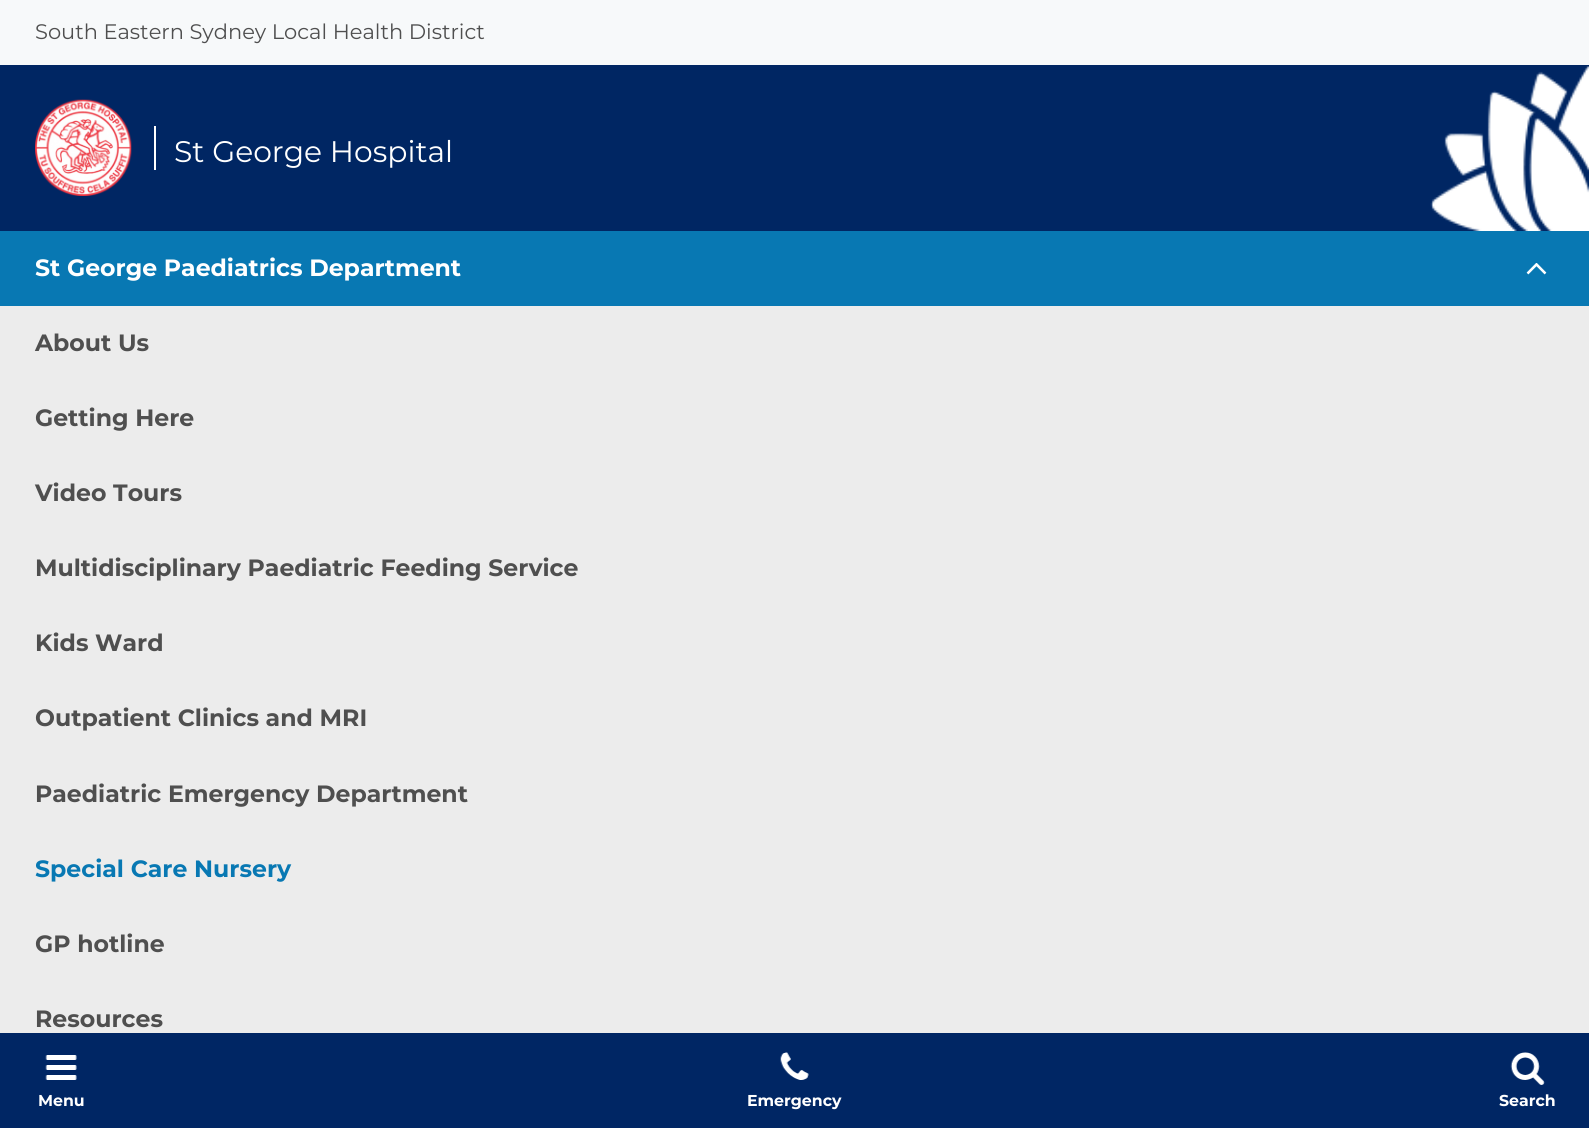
#include <cairo.h>
#include <math.h>
#include <stddef.h>


static void picture(cairo_t *cr, const char *path, double x, double y, double w, double h) {
    cairo_surface_t *image = cairo_image_surface_create_from_png(path);
    cairo_save(cr);
    cairo_set_source_surface(cr, image, x, y);
    cairo_rectangle(cr, x, y, w, h);
    cairo_fill(cr);
    cairo_restore(cr);
    cairo_surface_destroy(image);
}

int main(void) {
    cairo_surface_t *surface = cairo_image_surface_create(CAIRO_FORMAT_RGB24, 1589, 1128);
    cairo_t *cr = cairo_create(surface);
    cairo_font_options_t *options = cairo_font_options_create();
    cairo_font_options_set_hint_metrics(options, CAIRO_HINT_METRICS_OFF);
    cairo_font_options_set_hint_style(options, CAIRO_HINT_STYLE_NONE);
    cairo_set_font_options(cr, options);
    cairo_set_miter_limit(cr, 4);
    cairo_set_source_rgb(cr, 0.965, 0.973, 0.98);
    cairo_paint(cr);
    cairo_select_font_face(cr, "Montserrat", CAIRO_FONT_SLANT_NORMAL, CAIRO_FONT_WEIGHT_NORMAL);
    cairo_set_font_size(cr, 21);
    cairo_set_source_rgb(cr, 0.31, 0.31, 0.31);
    cairo_move_to(cr, 35, 39);
    cairo_show_text(cr, "South Eastern Sydney Local Health District");
    cairo_set_source_rgb(cr, 0, 0.149, 0.388);
    cairo_rectangle(cr, 0, 65, 1589, 166);
    cairo_fill(cr);
    picture(cr, "img1.png", 1430, 66, 159, 165);
    picture(cr, "img2.png", 35, 99, 97, 97);
    cairo_set_source_rgb(cr, 1, 1, 1);
    cairo_rectangle(cr, 154, 126, 2, 44);
    cairo_fill(cr);
    cairo_set_font_size(cr, 29.75);
    cairo_move_to(cr, 174, 162);
    cairo_show_text(cr, "St George Hospital");
    cairo_set_source_rgb(cr, 0, 0.149, 0.392);
    cairo_rectangle(cr, 0, 1033, 1589, 95);
    cairo_fill(cr);
    picture(cr, "img3.png", 45, 1055, 32, 25);
    cairo_select_font_face(cr, "Montserrat", CAIRO_FONT_SLANT_NORMAL, CAIRO_FONT_WEIGHT_BOLD);
    cairo_set_font_size(cr, 15.75);
    cairo_set_source_rgb(cr, 1, 1, 1);
    cairo_move_to(cr, 38, 1106);
    cairo_show_text(cr, "Menu");
    picture(cr, "img4.png", 780, 1052, 29, 28);
    cairo_move_to(cr, 747, 1106);
    cairo_show_text(cr, "Emergency");
    picture(cr, "img5.png", 1510, 1052, 35, 33);
    cairo_move_to(cr, 1499, 1106);
    cairo_show_text(cr, "Search");
    cairo_set_source_rgb(cr, 0.035, 0.471, 0.702);
    cairo_rectangle(cr, 0, 231, 1589, 75);
    cairo_fill(cr);
    cairo_set_font_size(cr, 23.6);
    cairo_set_source_rgb(cr, 1, 1, 1);
    cairo_move_to(cr, 35, 276);
    cairo_show_text(cr, "St George Paediatrics Department");
    picture(cr, "img6.png", 1526, 263, 21, 12);
    cairo_set_source_rgb(cr, 0.922, 0.922, 0.922);
    cairo_rectangle(cr, 0, 306, 1589, 727);
    cairo_fill(cr);
    cairo_set_source_rgb(cr, 0.31, 0.31, 0.31);
    cairo_move_to(cr, 35, 351);
    cairo_show_text(cr, "About Us");
    cairo_move_to(cr, 35, 426);
    cairo_show_text(cr, "Getting Here");
    cairo_move_to(cr, 35, 501);
    cairo_show_text(cr, "Video Tours");
    cairo_move_to(cr, 35, 576);
    cairo_show_text(cr, "Multidisciplinary Paediatric Feeding Service");
    cairo_move_to(cr, 35, 651);
    cairo_show_text(cr, "Kids Ward");
    cairo_move_to(cr, 35, 726);
    cairo_show_text(cr, "Outpatient Clinics and MRI");
    cairo_move_to(cr, 35, 802);
    cairo_show_text(cr, "Paediatric Emergency Department");
    cairo_set_source_rgb(cr, 0.035, 0.471, 0.702);
    cairo_move_to(cr, 35, 877);
    cairo_show_text(cr, "Special Care Nursery");
    cairo_set_source_rgb(cr, 0.31, 0.31, 0.31);
    cairo_move_to(cr, 35, 952);
    cairo_show_text(cr, "GP hotline");
    cairo_move_to(cr, 35, 1027);
    cairo_show_text(cr, "Resources");
    cairo_surface_write_to_png(surface, "page.png");
    cairo_font_options_destroy(options);
    cairo_destroy(cr);
    cairo_surface_destroy(surface);
    return 0;
}
